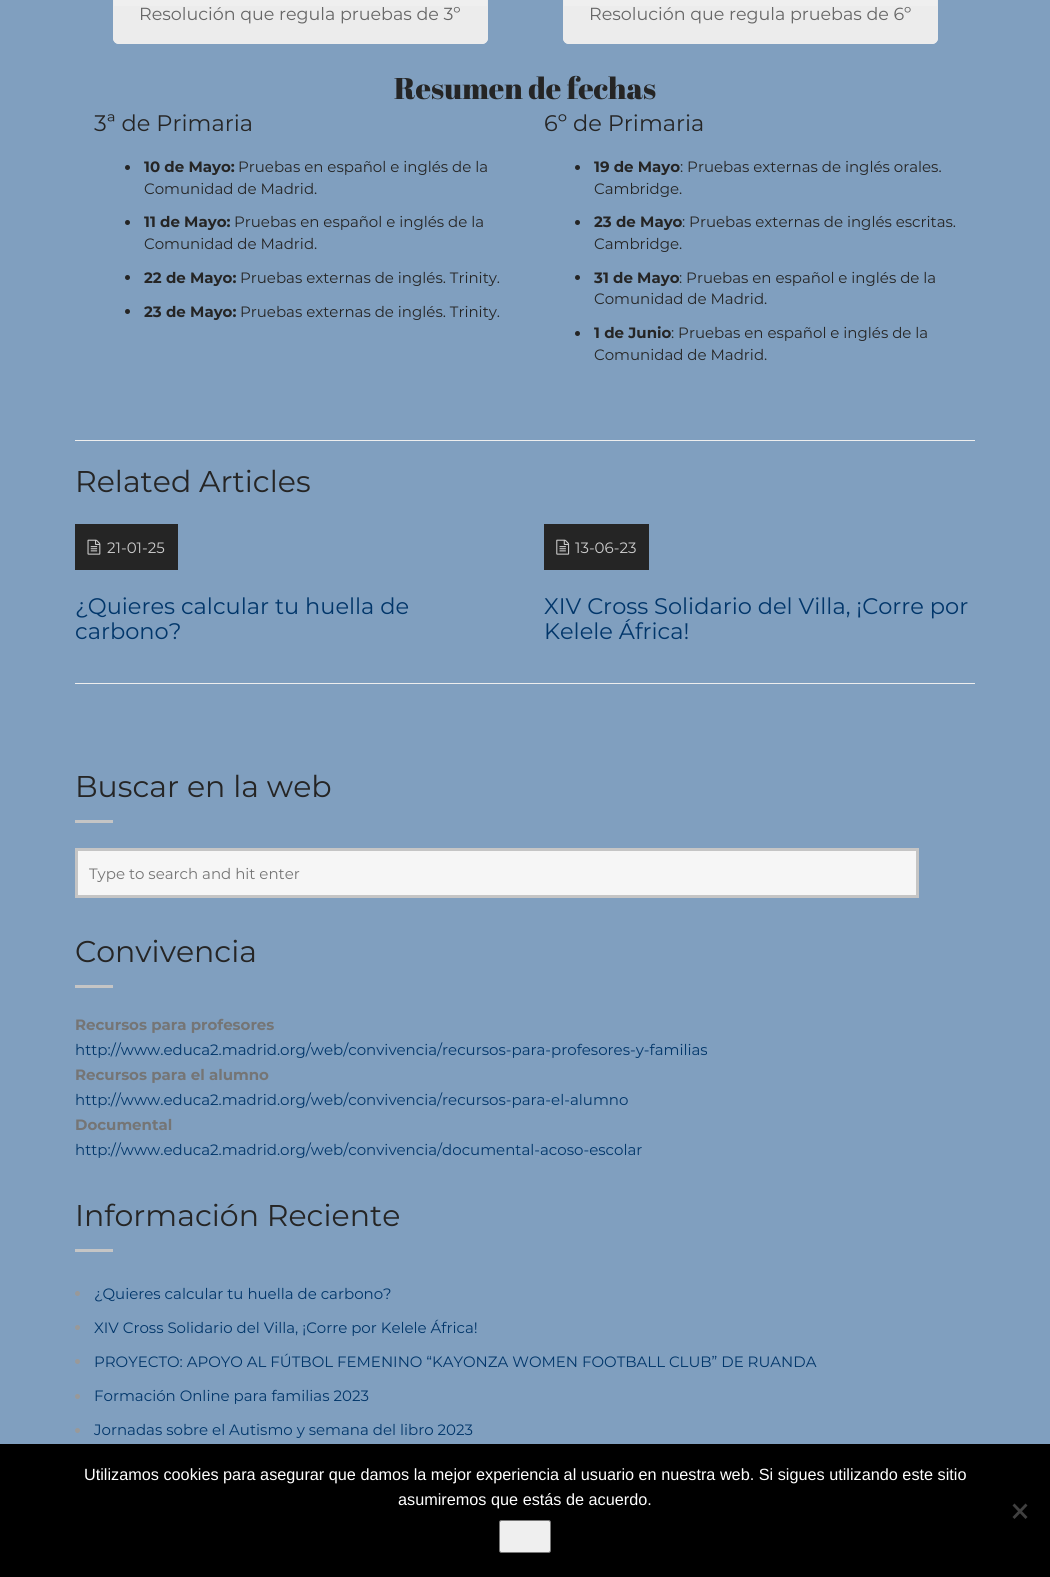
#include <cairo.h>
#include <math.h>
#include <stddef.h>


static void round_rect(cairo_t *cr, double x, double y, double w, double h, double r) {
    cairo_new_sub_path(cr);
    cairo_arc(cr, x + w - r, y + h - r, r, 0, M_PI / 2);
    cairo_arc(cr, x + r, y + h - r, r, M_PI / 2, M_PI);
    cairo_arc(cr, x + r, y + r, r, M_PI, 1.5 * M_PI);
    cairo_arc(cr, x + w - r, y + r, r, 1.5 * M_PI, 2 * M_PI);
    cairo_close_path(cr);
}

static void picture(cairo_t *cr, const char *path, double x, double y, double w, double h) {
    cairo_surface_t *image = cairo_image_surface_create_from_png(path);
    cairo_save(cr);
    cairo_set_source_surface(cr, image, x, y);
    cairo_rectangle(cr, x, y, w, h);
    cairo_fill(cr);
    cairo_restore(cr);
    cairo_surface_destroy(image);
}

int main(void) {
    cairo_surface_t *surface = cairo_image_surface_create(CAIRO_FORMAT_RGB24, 1050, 1577);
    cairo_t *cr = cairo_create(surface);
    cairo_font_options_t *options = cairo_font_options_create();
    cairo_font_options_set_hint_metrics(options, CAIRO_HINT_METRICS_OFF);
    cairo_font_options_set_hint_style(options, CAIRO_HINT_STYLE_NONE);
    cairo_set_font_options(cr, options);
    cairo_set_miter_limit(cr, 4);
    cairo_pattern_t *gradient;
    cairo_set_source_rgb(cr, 0.502, 0.624, 0.749);
    cairo_paint(cr);
    cairo_set_source_rgb(cr, 0.922, 0.922, 0.922);
    round_rect(cr, 113, -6, 375, 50, 6);
    cairo_fill(cr);
    gradient = cairo_pattern_create_linear(300, -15, 300, 43);
    cairo_pattern_add_color_stop_rgba(gradient, 0, 1, 1, 1, 0.2);
    cairo_pattern_add_color_stop_rgba(gradient, 1, 1, 1, 1, 0.01);
    cairo_set_source(cr, gradient);
    cairo_pattern_destroy(gradient);
    cairo_rectangle(cr, 113, 0, 375, 6);
    cairo_fill(cr);
    round_rect(cr, 113.5, -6.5, 374, 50, 5.5);
    cairo_set_source_rgb(cr, 0.922, 0.922, 0.922);
    cairo_set_line_width(cr, 1);
    cairo_stroke(cr);
    cairo_select_font_face(cr, "Montserrat", CAIRO_FONT_SLANT_NORMAL, CAIRO_FONT_WEIGHT_NORMAL);
    cairo_set_font_size(cr, 17.5);
    cairo_set_source_rgb(cr, 0.4, 0.4, 0.4);
    cairo_move_to(cr, 139, 20);
    cairo_show_text(cr, "Resolución que regula pruebas de 3º");
    cairo_set_source_rgb(cr, 0.922, 0.922, 0.922);
    round_rect(cr, 563, -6, 375, 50, 6);
    cairo_fill(cr);
    gradient = cairo_pattern_create_linear(750, -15, 750, 43);
    cairo_pattern_add_color_stop_rgba(gradient, 0, 1, 1, 1, 0.2);
    cairo_pattern_add_color_stop_rgba(gradient, 1, 1, 1, 1, 0.01);
    cairo_set_source(cr, gradient);
    cairo_pattern_destroy(gradient);
    cairo_rectangle(cr, 563, 0, 375, 6);
    cairo_fill(cr);
    round_rect(cr, 563.5, -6.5, 374, 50, 5.5);
    cairo_set_source_rgb(cr, 0.922, 0.922, 0.922);
    cairo_stroke(cr);
    cairo_set_source_rgb(cr, 0.4, 0.4, 0.4);
    cairo_move_to(cr, 589, 20);
    cairo_show_text(cr, "Resolución que regula pruebas de 6º");
    cairo_select_font_face(cr, "Abril Fatface", CAIRO_FONT_SLANT_NORMAL, CAIRO_FONT_WEIGHT_NORMAL);
    cairo_set_font_size(cr, 30);
    cairo_set_source_rgb(cr, 0.145, 0.145, 0.145);
    cairo_move_to(cr, 394, 99);
    cairo_show_text(cr, "Resumen de fechas");
    cairo_select_font_face(cr, "Montserrat", CAIRO_FONT_SLANT_NORMAL, CAIRO_FONT_WEIGHT_NORMAL);
    cairo_set_font_size(cr, 22.5);
    cairo_move_to(cr, 94, 131);
    cairo_show_text(cr, "3ª de Primaria");
    cairo_new_path(cr);
    cairo_arc(cr, 127.5, 167.5, 2.5, 0, 2 * M_PI);
    cairo_fill(cr);
    cairo_select_font_face(cr, "Montserrat", CAIRO_FONT_SLANT_NORMAL, CAIRO_FONT_WEIGHT_BOLD);
    cairo_set_font_size(cr, 15);
    cairo_move_to(cr, 144, 172);
    cairo_show_text(cr, "10 de Mayo:");
    cairo_select_font_face(cr, "Montserrat", CAIRO_FONT_SLANT_NORMAL, CAIRO_FONT_WEIGHT_NORMAL);
    cairo_move_to(cr, 238, 172);
    cairo_show_text(cr, "Pruebas en español e inglés de la");
    cairo_move_to(cr, 144, 194);
    cairo_show_text(cr, "Comunidad de Madrid.");
    cairo_new_path(cr);
    cairo_arc(cr, 127.5, 222.5, 2.5, 0, 2 * M_PI);
    cairo_fill(cr);
    cairo_select_font_face(cr, "Montserrat", CAIRO_FONT_SLANT_NORMAL, CAIRO_FONT_WEIGHT_BOLD);
    cairo_move_to(cr, 144, 227);
    cairo_show_text(cr, "11 de Mayo:");
    cairo_select_font_face(cr, "Montserrat", CAIRO_FONT_SLANT_NORMAL, CAIRO_FONT_WEIGHT_NORMAL);
    cairo_move_to(cr, 234, 227);
    cairo_show_text(cr, "Pruebas en español e inglés de la");
    cairo_move_to(cr, 144, 249);
    cairo_show_text(cr, "Comunidad de Madrid.");
    cairo_new_path(cr);
    cairo_arc(cr, 127.5, 277.5, 2.5, 0, 2 * M_PI);
    cairo_fill(cr);
    cairo_select_font_face(cr, "Montserrat", CAIRO_FONT_SLANT_NORMAL, CAIRO_FONT_WEIGHT_BOLD);
    cairo_move_to(cr, 144, 283);
    cairo_show_text(cr, "22 de Mayo:");
    cairo_select_font_face(cr, "Montserrat", CAIRO_FONT_SLANT_NORMAL, CAIRO_FONT_WEIGHT_NORMAL);
    cairo_move_to(cr, 240, 283);
    cairo_show_text(cr, "Pruebas externas de inglés. Trinity.");
    cairo_new_path(cr);
    cairo_arc(cr, 127.5, 311.5, 2.5, 0, 2 * M_PI);
    cairo_fill(cr);
    cairo_select_font_face(cr, "Montserrat", CAIRO_FONT_SLANT_NORMAL, CAIRO_FONT_WEIGHT_BOLD);
    cairo_move_to(cr, 144, 317);
    cairo_show_text(cr, "23 de Mayo:");
    cairo_select_font_face(cr, "Montserrat", CAIRO_FONT_SLANT_NORMAL, CAIRO_FONT_WEIGHT_NORMAL);
    cairo_move_to(cr, 240, 317);
    cairo_show_text(cr, "Pruebas externas de inglés. Trinity.");
    cairo_set_font_size(cr, 22.5);
    cairo_move_to(cr, 544, 131);
    cairo_show_text(cr, "6º de Primaria");
    cairo_new_path(cr);
    cairo_arc(cr, 577.5, 167.5, 2.5, 0, 2 * M_PI);
    cairo_fill(cr);
    cairo_select_font_face(cr, "Montserrat", CAIRO_FONT_SLANT_NORMAL, CAIRO_FONT_WEIGHT_BOLD);
    cairo_set_font_size(cr, 15);
    cairo_move_to(cr, 594, 172);
    cairo_show_text(cr, "19 de Mayo");
    cairo_select_font_face(cr, "Montserrat", CAIRO_FONT_SLANT_NORMAL, CAIRO_FONT_WEIGHT_NORMAL);
    cairo_move_to(cr, 680, 172);
    cairo_show_text(cr, ": Pruebas externas de inglés orales.");
    cairo_move_to(cr, 594, 194);
    cairo_show_text(cr, "Cambridge.");
    cairo_new_path(cr);
    cairo_arc(cr, 577.5, 222.5, 2.5, 0, 2 * M_PI);
    cairo_fill(cr);
    cairo_select_font_face(cr, "Montserrat", CAIRO_FONT_SLANT_NORMAL, CAIRO_FONT_WEIGHT_BOLD);
    cairo_move_to(cr, 594, 227);
    cairo_show_text(cr, "23 de Mayo");
    cairo_select_font_face(cr, "Montserrat", CAIRO_FONT_SLANT_NORMAL, CAIRO_FONT_WEIGHT_NORMAL);
    cairo_move_to(cr, 682, 227);
    cairo_show_text(cr, ": Pruebas externas de inglés escritas.");
    cairo_move_to(cr, 594, 249);
    cairo_show_text(cr, "Cambridge.");
    cairo_new_path(cr);
    cairo_arc(cr, 577.5, 277.5, 2.5, 0, 2 * M_PI);
    cairo_fill(cr);
    cairo_select_font_face(cr, "Montserrat", CAIRO_FONT_SLANT_NORMAL, CAIRO_FONT_WEIGHT_BOLD);
    cairo_move_to(cr, 594, 283);
    cairo_show_text(cr, "31 de Mayo");
    cairo_select_font_face(cr, "Montserrat", CAIRO_FONT_SLANT_NORMAL, CAIRO_FONT_WEIGHT_NORMAL);
    cairo_move_to(cr, 679, 283);
    cairo_show_text(cr, ": Pruebas en español e inglés de la");
    cairo_move_to(cr, 594, 304);
    cairo_show_text(cr, "Comunidad de Madrid.");
    cairo_new_path(cr);
    cairo_arc(cr, 577.5, 333.5, 2.5, 0, 2 * M_PI);
    cairo_fill(cr);
    cairo_select_font_face(cr, "Montserrat", CAIRO_FONT_SLANT_NORMAL, CAIRO_FONT_WEIGHT_BOLD);
    cairo_move_to(cr, 594, 338);
    cairo_show_text(cr, "1 de Junio");
    cairo_select_font_face(cr, "Montserrat", CAIRO_FONT_SLANT_NORMAL, CAIRO_FONT_WEIGHT_NORMAL);
    cairo_move_to(cr, 671, 338);
    cairo_show_text(cr, ": Pruebas en español e inglés de la");
    cairo_move_to(cr, 594, 360);
    cairo_show_text(cr, "Comunidad de Madrid.");
    cairo_set_source_rgb(cr, 0.933, 0.933, 0.933);
    cairo_rectangle(cr, 75, 440, 900, 1);
    cairo_fill(cr);
    cairo_set_font_size(cr, 30);
    cairo_set_source_rgb(cr, 0.145, 0.145, 0.145);
    cairo_move_to(cr, 75, 492);
    cairo_show_text(cr, "Related Articles");
    cairo_rectangle(cr, 75, 524, 103, 46);
    cairo_fill(cr);
    picture(cr, "img1.png", 87, 539, 14, 16);
    cairo_set_font_size(cr, 15);
    cairo_set_source_rgb(cr, 0.8, 0.8, 0.8);
    cairo_move_to(cr, 107, 553);
    cairo_show_text(cr, "21-01-25");
    cairo_set_font_size(cr, 22.5);
    cairo_set_source_rgb(cr, 0.004, 0.212, 0.416);
    cairo_move_to(cr, 75, 614);
    cairo_show_text(cr, "¿Quieres calcular tu huella de");
    cairo_move_to(cr, 75, 639);
    cairo_show_text(cr, "carbono?");
    cairo_set_source_rgb(cr, 0.145, 0.145, 0.145);
    cairo_rectangle(cr, 544, 524, 105, 46);
    cairo_fill(cr);
    picture(cr, "img2.png", 556, 539, 14, 16);
    cairo_set_font_size(cr, 15);
    cairo_set_source_rgb(cr, 0.8, 0.8, 0.8);
    cairo_move_to(cr, 575, 553);
    cairo_show_text(cr, "13-06-23");
    cairo_set_font_size(cr, 22.5);
    cairo_set_source_rgb(cr, 0.004, 0.212, 0.416);
    cairo_move_to(cr, 544, 614);
    cairo_show_text(cr, "XIV Cross Solidario del Villa, ¡Corre por");
    cairo_move_to(cr, 544, 639);
    cairo_show_text(cr, "Kelele África!");
    cairo_set_source_rgb(cr, 0.933, 0.933, 0.933);
    cairo_rectangle(cr, 75, 683, 900, 1);
    cairo_fill(cr);
    cairo_set_font_size(cr, 30);
    cairo_set_source_rgb(cr, 0.145, 0.145, 0.145);
    cairo_move_to(cr, 75, 797);
    cairo_show_text(cr, "Buscar en la web");
    cairo_set_source_rgb(cr, 0.773, 0.773, 0.773);
    cairo_rectangle(cr, 75, 820, 38, 3);
    cairo_fill(cr);
    cairo_set_source_rgb(cr, 0.961, 0.961, 0.961);
    cairo_rectangle(cr, 76.5, 849.5, 841, 47);
    cairo_fill_preserve(cr);
    cairo_set_source_rgb(cr, 0.773, 0.773, 0.773);
    cairo_set_line_width(cr, 3);
    cairo_stroke(cr);
    cairo_set_font_size(cr, 15);
    cairo_set_source_rgb(cr, 0.459, 0.459, 0.459);
    cairo_move_to(cr, 89, 879);
    cairo_show_text(cr, "Type to search and hit enter");
    cairo_set_font_size(cr, 30);
    cairo_set_source_rgb(cr, 0.145, 0.145, 0.145);
    cairo_move_to(cr, 75, 962);
    cairo_show_text(cr, "Convivencia");
    cairo_set_source_rgb(cr, 0.773, 0.773, 0.773);
    cairo_rectangle(cr, 75, 985, 38, 3);
    cairo_fill(cr);
    cairo_select_font_face(cr, "Montserrat", CAIRO_FONT_SLANT_NORMAL, CAIRO_FONT_WEIGHT_BOLD);
    cairo_set_font_size(cr, 15);
    cairo_set_source_rgb(cr, 0.459, 0.459, 0.459);
    cairo_move_to(cr, 75, 1030);
    cairo_show_text(cr, "Recursos para profesores");
    cairo_select_font_face(cr, "Montserrat", CAIRO_FONT_SLANT_NORMAL, CAIRO_FONT_WEIGHT_NORMAL);
    cairo_set_source_rgb(cr, 0.004, 0.212, 0.416);
    cairo_move_to(cr, 75, 1055);
    cairo_show_text(cr, "http://www.educa2.madrid.org/web/convivencia/recursos-para-profesores-y-familias");
    cairo_select_font_face(cr, "Montserrat", CAIRO_FONT_SLANT_NORMAL, CAIRO_FONT_WEIGHT_BOLD);
    cairo_set_source_rgb(cr, 0.459, 0.459, 0.459);
    cairo_move_to(cr, 75, 1080);
    cairo_show_text(cr, "Recursos para el alumno");
    cairo_select_font_face(cr, "Montserrat", CAIRO_FONT_SLANT_NORMAL, CAIRO_FONT_WEIGHT_NORMAL);
    cairo_set_source_rgb(cr, 0.004, 0.212, 0.416);
    cairo_move_to(cr, 75, 1105);
    cairo_show_text(cr, "http://www.educa2.madrid.org/web/convivencia/recursos-para-el-alumno");
    cairo_select_font_face(cr, "Montserrat", CAIRO_FONT_SLANT_NORMAL, CAIRO_FONT_WEIGHT_BOLD);
    cairo_set_source_rgb(cr, 0.459, 0.459, 0.459);
    cairo_move_to(cr, 75, 1130);
    cairo_show_text(cr, "Documental");
    cairo_select_font_face(cr, "Montserrat", CAIRO_FONT_SLANT_NORMAL, CAIRO_FONT_WEIGHT_NORMAL);
    cairo_set_source_rgb(cr, 0.004, 0.212, 0.416);
    cairo_move_to(cr, 75, 1155);
    cairo_show_text(cr, "http://www.educa2.madrid.org/web/convivencia/documental-acoso-escolar");
    cairo_set_font_size(cr, 30);
    cairo_set_source_rgb(cr, 0.145, 0.145, 0.145);
    cairo_move_to(cr, 75, 1226);
    cairo_show_text(cr, "Información Reciente");
    cairo_set_source_rgb(cr, 0.773, 0.773, 0.773);
    cairo_rectangle(cr, 75, 1249, 38, 3);
    cairo_fill(cr);
    cairo_set_source_rgb(cr, 0.6, 0.6, 0.6);
    cairo_arc(cr, 77.5, 1293.5, 2.5, 0, 2 * M_PI);
    cairo_fill(cr);
    cairo_set_font_size(cr, 15);
    cairo_set_source_rgb(cr, 0.004, 0.212, 0.416);
    cairo_move_to(cr, 94, 1299);
    cairo_show_text(cr, "¿Quieres calcular tu huella de carbono?");
    cairo_set_source_rgb(cr, 0.6, 0.6, 0.6);
    cairo_new_path(cr);
    cairo_arc(cr, 77.5, 1327.5, 2.5, 0, 2 * M_PI);
    cairo_fill(cr);
    cairo_set_source_rgb(cr, 0.004, 0.212, 0.416);
    cairo_move_to(cr, 94, 1333);
    cairo_show_text(cr, "XIV Cross Solidario del Villa, ¡Corre por Kelele África!");
    cairo_set_source_rgb(cr, 0.6, 0.6, 0.6);
    cairo_new_path(cr);
    cairo_arc(cr, 77.5, 1361.5, 2.5, 0, 2 * M_PI);
    cairo_fill(cr);
    cairo_set_source_rgb(cr, 0.004, 0.212, 0.416);
    cairo_move_to(cr, 94, 1367);
    cairo_show_text(cr, "PROYECTO: APOYO AL FÚTBOL FEMENINO “KAYONZA WOMEN FOOTBALL CLUB” DE RUANDA");
    cairo_set_source_rgb(cr, 0.6, 0.6, 0.6);
    cairo_new_path(cr);
    cairo_arc(cr, 77.5, 1396.5, 2.5, 0, 2 * M_PI);
    cairo_fill(cr);
    cairo_set_source_rgb(cr, 0.004, 0.212, 0.416);
    cairo_move_to(cr, 94, 1401);
    cairo_show_text(cr, "Formación Online para familias 2023");
    cairo_set_source_rgb(cr, 0.6, 0.6, 0.6);
    cairo_new_path(cr);
    cairo_arc(cr, 77.5, 1430.5, 2.5, 0, 2 * M_PI);
    cairo_fill(cr);
    cairo_set_source_rgb(cr, 0.004, 0.212, 0.416);
    cairo_move_to(cr, 94, 1435);
    cairo_show_text(cr, "Jornadas sobre el Autismo y semana del libro 2023");
    cairo_set_source_rgb(cr, 0, 0, 0);
    cairo_rectangle(cr, 0, 1444, 1050, 133);
    cairo_fill(cr);
    cairo_select_font_face(cr, "Liberation Sans", CAIRO_FONT_SLANT_NORMAL, CAIRO_FONT_WEIGHT_NORMAL);
    cairo_set_font_size(cr, 16.25);
    cairo_set_source_rgb(cr, 1, 1, 1);
    cairo_move_to(cr, 84, 1480);
    cairo_show_text(cr, "Utilizamos cookies para asegurar que damos la mejor experiencia al usuario en nuestra web. Si sigues utilizando este sitio");
    cairo_move_to(cr, 398, 1505);
    cairo_show_text(cr, "asumiremos que estás de acuerdo.");
    cairo_set_source_rgb(cr, 0.251, 0.251, 0.251);
    cairo_new_path(cr);
    cairo_move_to(cr, 1025.5, 1503.5);
    cairo_line_to(cr, 1027.5, 1505.5);
    cairo_line_to(cr, 1014.5, 1519);
    cairo_line_to(cr, 1012.5, 1517);
    cairo_close_path(cr);
    cairo_fill(cr);
    cairo_new_path(cr);
    cairo_move_to(cr, 1012.5, 1505.5);
    cairo_line_to(cr, 1014.5, 1503.5);
    cairo_line_to(cr, 1027.5, 1517);
    cairo_line_to(cr, 1025.5, 1519);
    cairo_close_path(cr);
    cairo_fill(cr);
    cairo_set_source_rgb(cr, 0.937, 0.937, 0.937);
    round_rect(cr, 499.5, 1520.5, 51, 32, 2);
    cairo_fill_preserve(cr);
    cairo_set_source_rgb(cr, 0.463, 0.463, 0.463);
    cairo_set_line_width(cr, 1);
    cairo_stroke(cr);
    cairo_surface_write_to_png(surface, "page.png");
    cairo_font_options_destroy(options);
    cairo_destroy(cr);
    cairo_surface_destroy(surface);
    return 0;
}
